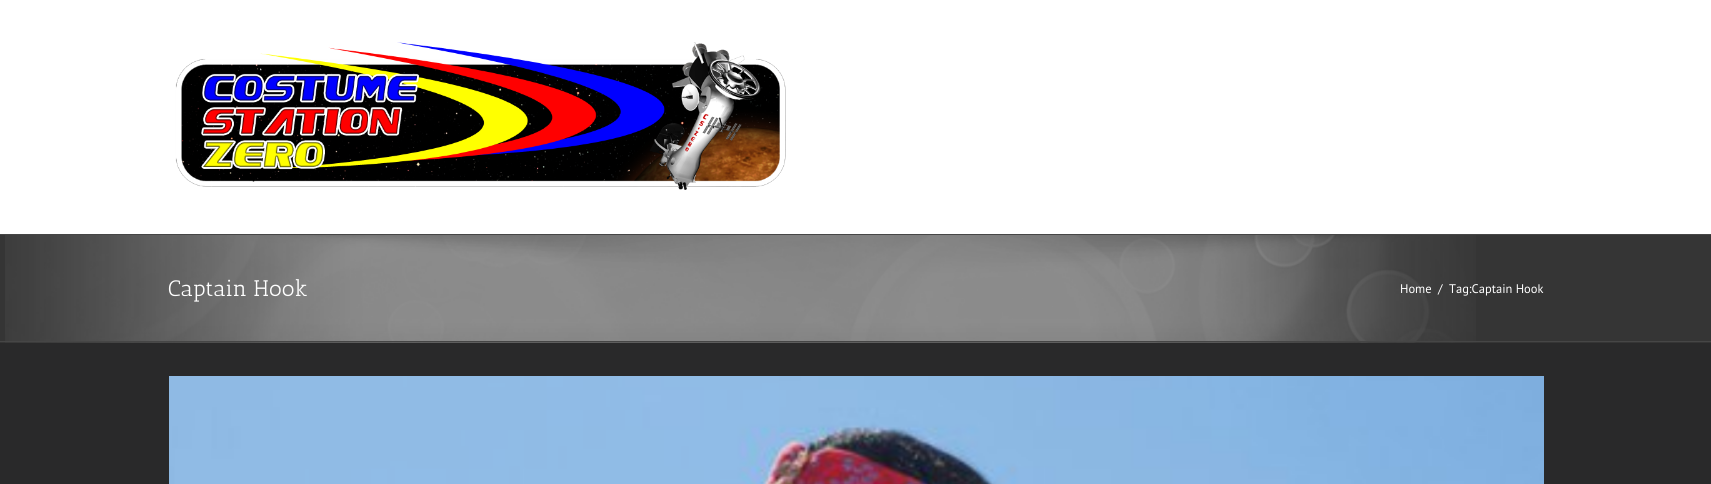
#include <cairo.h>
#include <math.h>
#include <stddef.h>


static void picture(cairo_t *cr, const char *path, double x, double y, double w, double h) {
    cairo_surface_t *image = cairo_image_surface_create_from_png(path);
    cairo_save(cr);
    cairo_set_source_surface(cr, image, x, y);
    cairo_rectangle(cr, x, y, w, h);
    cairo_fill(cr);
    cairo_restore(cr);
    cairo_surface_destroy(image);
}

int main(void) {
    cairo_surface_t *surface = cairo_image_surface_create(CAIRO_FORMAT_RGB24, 1711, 484);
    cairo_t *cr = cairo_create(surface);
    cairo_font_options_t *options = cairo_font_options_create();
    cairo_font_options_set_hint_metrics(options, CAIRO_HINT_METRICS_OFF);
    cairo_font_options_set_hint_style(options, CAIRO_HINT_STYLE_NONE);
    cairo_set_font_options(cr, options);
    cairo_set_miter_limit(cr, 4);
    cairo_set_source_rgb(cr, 0.161, 0.161, 0.165);
    cairo_paint(cr);
    cairo_set_source_rgb(cr, 1, 1, 1);
    cairo_rectangle(cr, 0, 0, 1711, 234);
    cairo_fill(cr);
    picture(cr, "img1.png", 175, 42, 611, 148);
    cairo_set_source_rgb(cr, 0.208, 0.208, 0.208);
    cairo_rectangle(cr, 0, 235, 1711, 108);
    cairo_fill(cr);
    picture(cr, "img2.png", 5, 235, 1471, 108);
    cairo_set_source_rgb(cr, 0.275, 0.275, 0.275);
    cairo_rectangle(cr, 0, 234, 1711, 1);
    cairo_fill(cr);
    cairo_rectangle(cr, 0, 341, 1711, 1);
    cairo_fill(cr);
    cairo_select_font_face(cr, "Antic Slab", CAIRO_FONT_SLANT_NORMAL, CAIRO_FONT_WEIGHT_NORMAL);
    cairo_set_font_size(cr, 22.5);
    cairo_set_source_rgb(cr, 1, 1, 1);
    cairo_move_to(cr, 168, 296);
    cairo_show_text(cr, "Captain Hook");
    cairo_select_font_face(cr, "PT Sans", CAIRO_FONT_SLANT_NORMAL, CAIRO_FONT_WEIGHT_NORMAL);
    cairo_set_font_size(cr, 12.5);
    cairo_move_to(cr, 1400, 293);
    cairo_show_text(cr, "Home");
    cairo_move_to(cr, 1438, 293);
    cairo_show_text(cr, "/");
    cairo_move_to(cr, 1449, 293);
    cairo_show_text(cr, "Tag:Captain Hook");
    picture(cr, "img3.png", 169, 376, 1375, 108);
    cairo_surface_write_to_png(surface, "page.png");
    cairo_font_options_destroy(options);
    cairo_destroy(cr);
    cairo_surface_destroy(surface);
    return 0;
}
